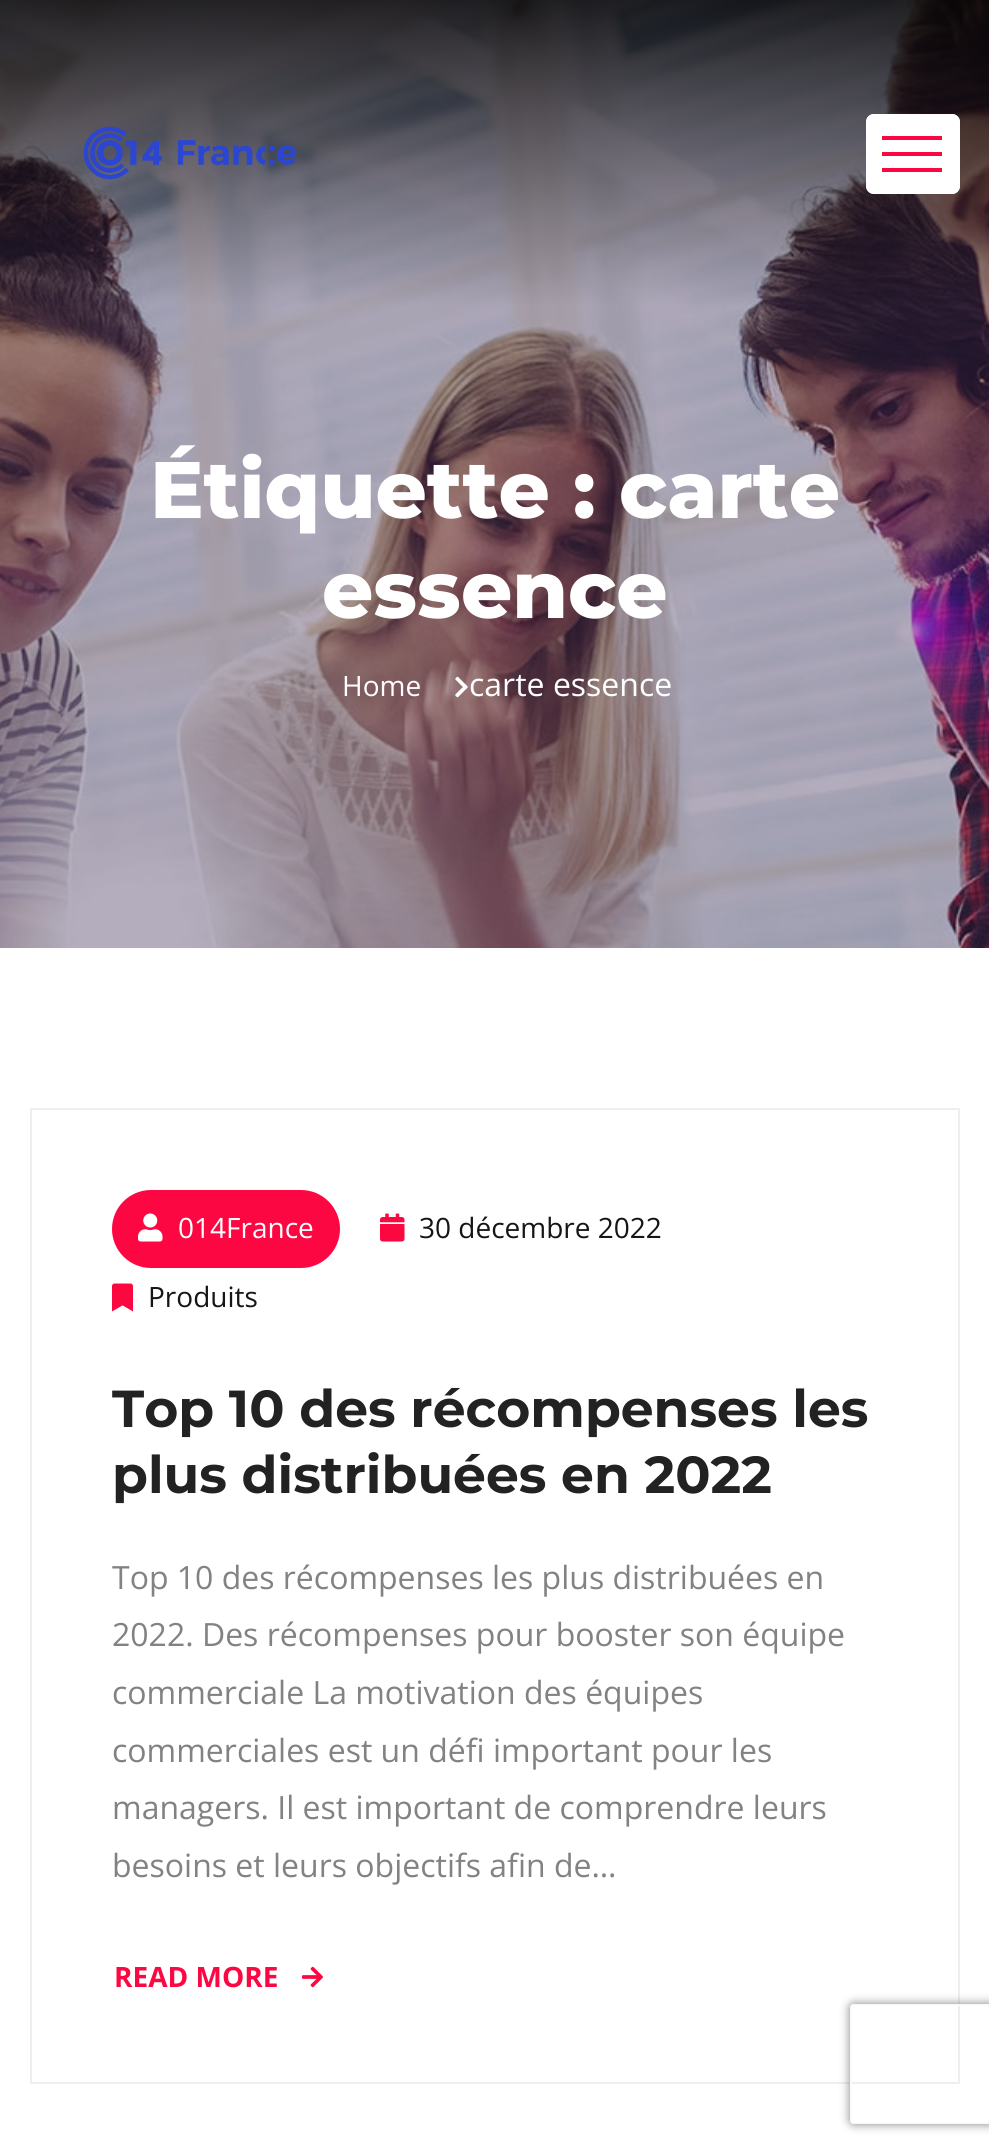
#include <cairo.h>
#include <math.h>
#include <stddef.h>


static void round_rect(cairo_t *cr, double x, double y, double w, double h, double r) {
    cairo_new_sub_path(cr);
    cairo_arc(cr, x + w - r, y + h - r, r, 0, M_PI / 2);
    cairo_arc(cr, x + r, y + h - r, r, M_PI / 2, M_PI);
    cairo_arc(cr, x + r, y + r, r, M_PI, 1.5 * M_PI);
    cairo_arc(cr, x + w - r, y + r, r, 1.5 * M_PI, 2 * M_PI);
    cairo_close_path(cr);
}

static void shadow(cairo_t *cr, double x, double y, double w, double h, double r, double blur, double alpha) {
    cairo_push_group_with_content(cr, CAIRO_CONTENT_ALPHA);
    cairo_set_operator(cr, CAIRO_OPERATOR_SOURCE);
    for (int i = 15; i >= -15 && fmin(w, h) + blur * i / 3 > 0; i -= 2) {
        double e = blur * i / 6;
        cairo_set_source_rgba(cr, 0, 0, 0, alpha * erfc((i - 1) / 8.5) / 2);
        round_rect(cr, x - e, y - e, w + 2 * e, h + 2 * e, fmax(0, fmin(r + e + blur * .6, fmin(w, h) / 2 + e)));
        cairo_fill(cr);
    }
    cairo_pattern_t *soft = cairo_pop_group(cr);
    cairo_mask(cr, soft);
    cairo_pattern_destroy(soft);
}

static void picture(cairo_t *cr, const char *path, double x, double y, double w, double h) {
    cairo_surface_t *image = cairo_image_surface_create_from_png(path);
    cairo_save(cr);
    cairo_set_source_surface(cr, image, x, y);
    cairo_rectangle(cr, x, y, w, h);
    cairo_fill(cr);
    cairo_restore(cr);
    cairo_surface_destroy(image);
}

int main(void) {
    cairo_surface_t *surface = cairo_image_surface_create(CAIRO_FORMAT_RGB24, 989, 2151);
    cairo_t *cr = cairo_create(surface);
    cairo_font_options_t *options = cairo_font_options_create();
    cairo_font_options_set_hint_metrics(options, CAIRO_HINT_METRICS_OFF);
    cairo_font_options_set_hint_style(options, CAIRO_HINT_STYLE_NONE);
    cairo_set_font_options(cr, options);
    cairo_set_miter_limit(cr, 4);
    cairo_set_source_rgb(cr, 1, 1, 1);
    cairo_paint(cr);
    picture(cr, "img2.png", 0, 0, 989, 948);
    picture(cr, "img1.png", 83, 126, 214, 54);
    cairo_set_source_rgb(cr, 1, 1, 1);
    round_rect(cr, 866, 114, 94, 80, 8);
    cairo_fill(cr);
    round_rect(cr, 867, 115, 92, 78, 7);
    cairo_set_source_rgba(cr, 1, 1, 1, 0.8);
    cairo_stroke(cr);
    cairo_set_source_rgb(cr, 0.988, 0.031, 0.255);
    cairo_rectangle(cr, 882, 136, 60, 4);
    cairo_fill(cr);
    cairo_rectangle(cr, 882, 152, 60, 4);
    cairo_fill(cr);
    cairo_rectangle(cr, 882, 168, 60, 4);
    cairo_fill(cr);
    cairo_select_font_face(cr, "Montserrat ExtraBold", CAIRO_FONT_SLANT_NORMAL, CAIRO_FONT_WEIGHT_NORMAL);
    cairo_set_font_size(cr, 80);
    cairo_set_source_rgb(cr, 1, 1, 1);
    cairo_move_to(cr, 150, 518);
    cairo_show_text(cr, "Étiquette : carte");
    cairo_move_to(cr, 322, 618);
    cairo_show_text(cr, "essence");
    cairo_select_font_face(cr, "Open Sans", CAIRO_FONT_SLANT_NORMAL, CAIRO_FONT_WEIGHT_NORMAL);
    cairo_set_font_size(cr, 28);
    cairo_move_to(cr, 342, 696);
    cairo_show_text(cr, "Home");
    picture(cr, "img3.png", 455, 676, 13, 22);
    cairo_set_font_size(cr, 32);
    cairo_move_to(cr, 469, 696);
    cairo_show_text(cr, "carte essence");
    cairo_rectangle(cr, 31, 1109, 928, 974);
    cairo_set_source_rgb(cr, 0.933, 0.933, 0.933);
    cairo_stroke(cr);
    cairo_set_source_rgb(cr, 0.988, 0.031, 0.255);
    round_rect(cr, 112, 1190, 228, 78, 39);
    cairo_fill(cr);
    picture(cr, "img4.png", 138, 1213, 25, 29);
    cairo_set_font_size(cr, 28);
    cairo_set_source_rgb(cr, 1, 1, 1);
    cairo_move_to(cr, 178, 1238);
    cairo_show_text(cr, "014France");
    picture(cr, "img5.png", 380, 1213, 25, 29);
    cairo_set_source_rgb(cr, 0.086, 0.086, 0.098);
    cairo_move_to(cr, 419, 1238);
    cairo_show_text(cr, "30 décembre 2022");
    picture(cr, "img6.png", 112, 1283, 21, 29);
    cairo_move_to(cr, 148, 1307);
    cairo_show_text(cr, "Produits");
    cairo_select_font_face(cr, "Montserrat", CAIRO_FONT_SLANT_NORMAL, CAIRO_FONT_WEIGHT_BOLD);
    cairo_set_font_size(cr, 52);
    cairo_set_source_rgb(cr, 0.133, 0.133, 0.133);
    cairo_move_to(cr, 112, 1427);
    cairo_show_text(cr, "Top 10 des récompenses les");
    cairo_move_to(cr, 112, 1493);
    cairo_show_text(cr, "plus distribuées en 2022");
    cairo_select_font_face(cr, "Open Sans", CAIRO_FONT_SLANT_NORMAL, CAIRO_FONT_WEIGHT_NORMAL);
    cairo_set_font_size(cr, 32);
    cairo_set_source_rgb(cr, 0.51, 0.51, 0.51);
    cairo_move_to(cr, 112, 1589);
    cairo_show_text(cr, "Top 10 des récompenses les plus distribuées en");
    cairo_move_to(cr, 112, 1646);
    cairo_show_text(cr, "2022. Des récompenses pour booster son équipe");
    cairo_move_to(cr, 112, 1704);
    cairo_show_text(cr, "commerciale La motivation des équipes");
    cairo_move_to(cr, 112, 1762);
    cairo_show_text(cr, "commerciales est un défi important pour les");
    cairo_move_to(cr, 112, 1819);
    cairo_show_text(cr, "managers. Il est important de comprendre leurs");
    cairo_move_to(cr, 112, 1877);
    cairo_show_text(cr, "besoins et leurs objectifs afin de…");
    cairo_select_font_face(cr, "Open Sans", CAIRO_FONT_SLANT_NORMAL, CAIRO_FONT_WEIGHT_BOLD);
    cairo_set_font_size(cr, 28);
    cairo_set_source_rgb(cr, 0.988, 0.031, 0.255);
    cairo_move_to(cr, 114, 1987);
    cairo_show_text(cr, "READ MORE");
    picture(cr, "img7.png", 302, 1966, 21, 22);
    cairo_save(cr);
    cairo_set_fill_rule(cr, CAIRO_FILL_RULE_EVEN_ODD);
    cairo_new_path(cr);
    cairo_move_to(cr, 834, 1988);
    cairo_line_to(cr, 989, 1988);
    cairo_line_to(cr, 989, 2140);
    cairo_line_to(cr, 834, 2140);
    cairo_close_path(cr);
    cairo_move_to(cr, 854, 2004);
    cairo_line_to(cr, 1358, 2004);
    cairo_curve_to(cr, 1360, 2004, 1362, 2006, 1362, 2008);
    cairo_line_to(cr, 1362, 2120);
    cairo_curve_to(cr, 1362, 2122, 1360, 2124, 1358, 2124);
    cairo_line_to(cr, 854, 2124);
    cairo_curve_to(cr, 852, 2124, 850, 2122, 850, 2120);
    cairo_line_to(cr, 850, 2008);
    cairo_curve_to(cr, 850, 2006, 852, 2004, 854, 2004);
    cairo_close_path(cr);
    cairo_clip(cr);
    cairo_set_source_rgb(cr, 0.502, 0.502, 0.502);
    shadow(cr, 850, 2004, 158, 120, 4, 5, 1);
    cairo_restore(cr);
    cairo_set_source_rgb(cr, 0.984, 0.984, 0.984);
    cairo_set_fill_rule(cr, CAIRO_FILL_RULE_EVEN_ODD);
    cairo_new_path(cr);
    cairo_move_to(cr, 854, 2004);
    cairo_curve_to(cr, 852, 2004, 850, 2006, 850, 2008);
    cairo_line_to(cr, 850, 2120);
    cairo_curve_to(cr, 850, 2122, 852, 2124, 854, 2124);
    cairo_line_to(cr, 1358, 2124);
    cairo_curve_to(cr, 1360, 2124, 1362, 2122, 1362, 2120);
    cairo_line_to(cr, 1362, 2008);
    cairo_curve_to(cr, 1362, 2006, 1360, 2004, 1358, 2004);
    cairo_close_path(cr);
    cairo_move_to(cr, 852, 2006);
    cairo_line_to(cr, 852, 2122);
    cairo_line_to(cr, 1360, 2122);
    cairo_line_to(cr, 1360, 2006);
    cairo_close_path(cr);
    cairo_fill(cr);
    cairo_surface_write_to_png(surface, "page.png");
    cairo_font_options_destroy(options);
    cairo_destroy(cr);
    cairo_surface_destroy(surface);
    return 0;
}
